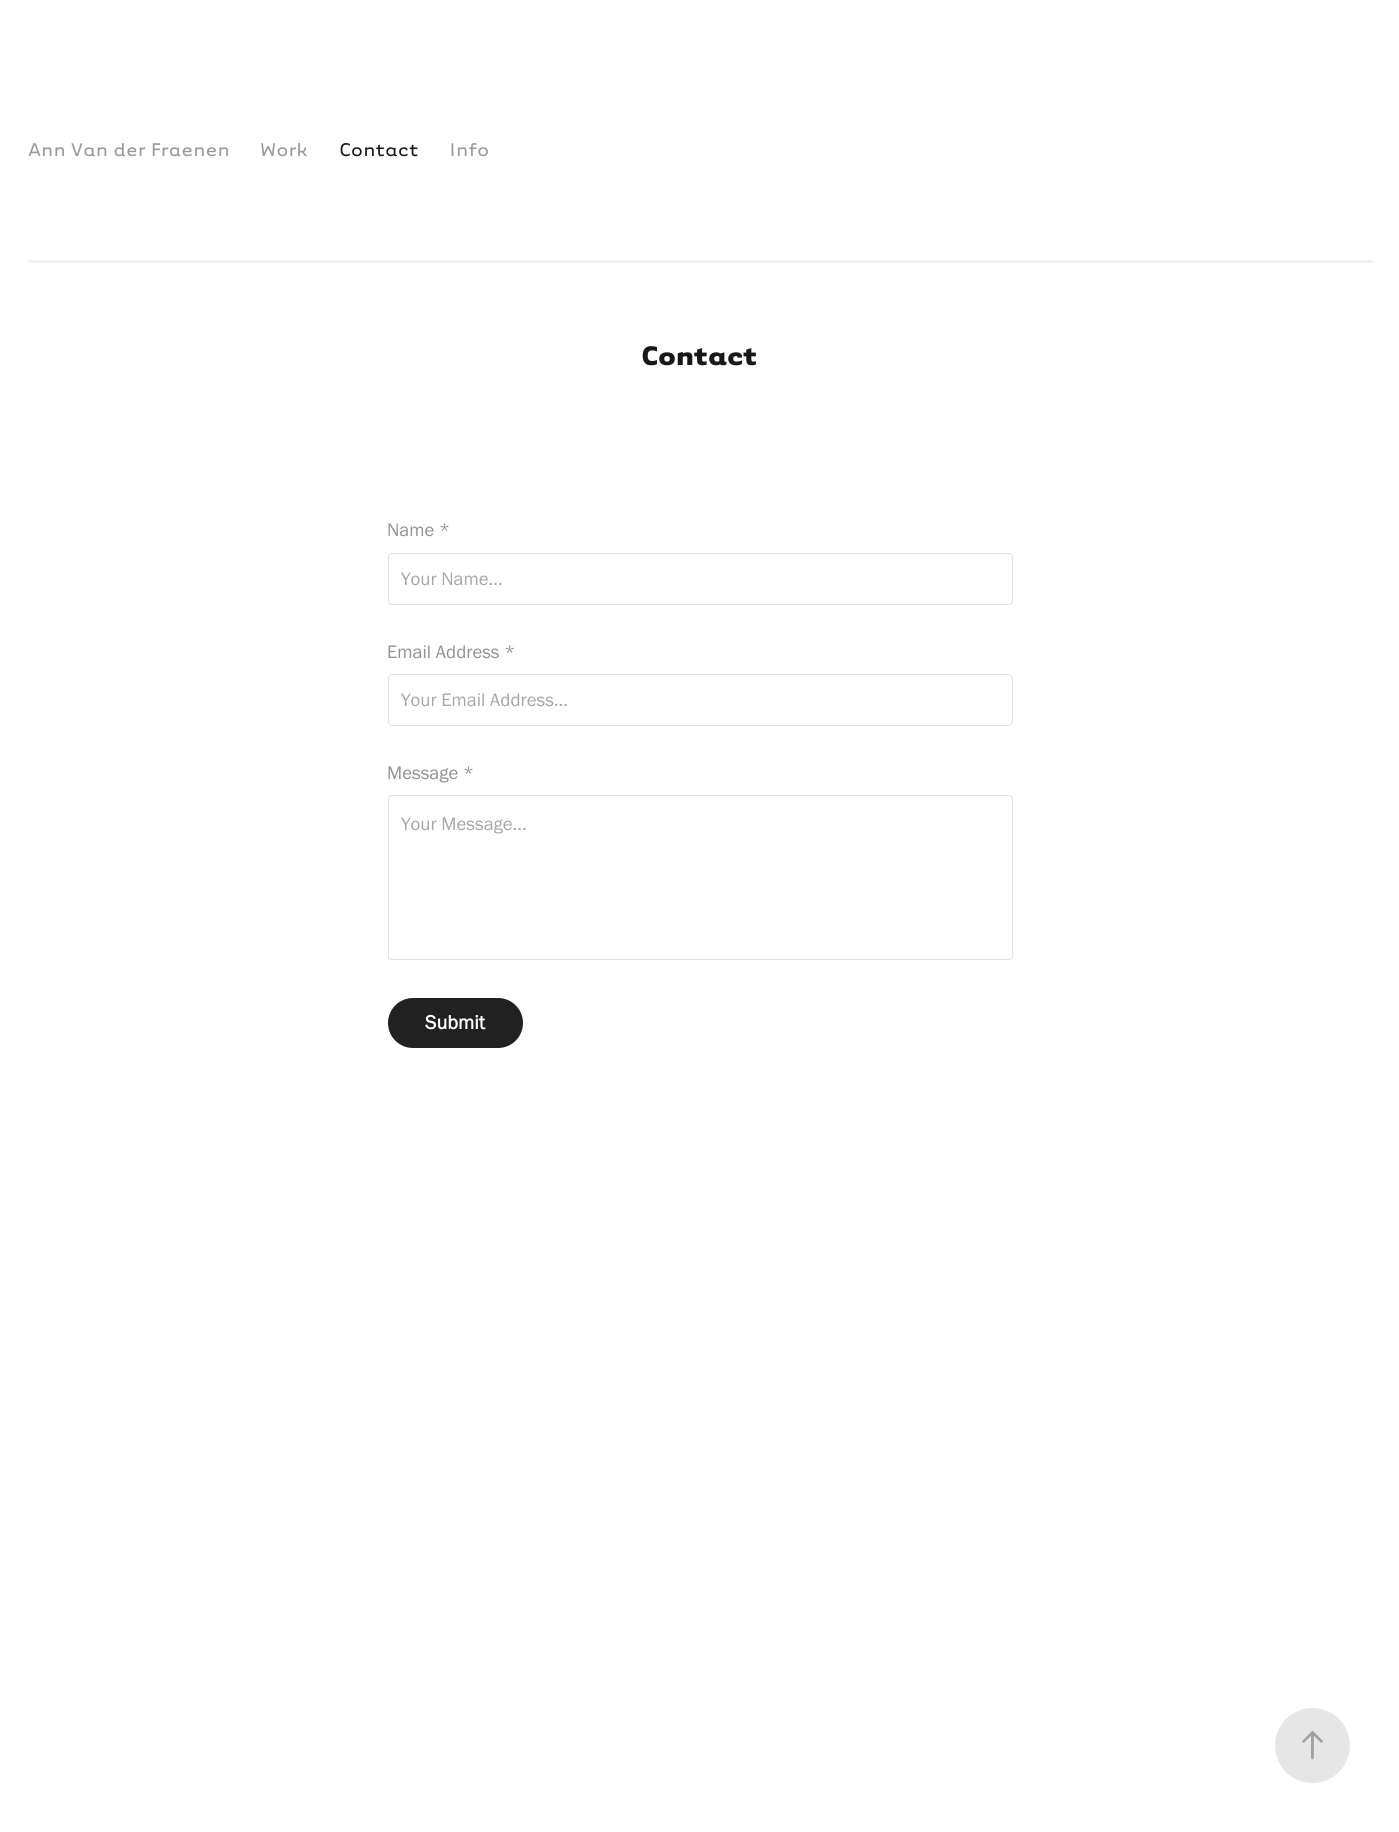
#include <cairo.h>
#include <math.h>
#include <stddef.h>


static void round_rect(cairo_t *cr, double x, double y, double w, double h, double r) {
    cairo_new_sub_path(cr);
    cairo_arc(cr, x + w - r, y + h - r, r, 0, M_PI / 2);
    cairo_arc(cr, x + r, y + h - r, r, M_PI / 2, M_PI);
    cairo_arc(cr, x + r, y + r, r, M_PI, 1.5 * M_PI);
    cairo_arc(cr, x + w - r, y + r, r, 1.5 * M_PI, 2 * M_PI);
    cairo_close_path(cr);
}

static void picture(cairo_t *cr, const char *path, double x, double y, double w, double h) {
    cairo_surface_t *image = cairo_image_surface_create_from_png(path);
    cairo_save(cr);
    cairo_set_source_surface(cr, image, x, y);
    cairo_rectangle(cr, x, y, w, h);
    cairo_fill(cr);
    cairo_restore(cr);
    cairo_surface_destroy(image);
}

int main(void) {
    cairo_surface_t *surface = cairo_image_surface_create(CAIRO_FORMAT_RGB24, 1399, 1832);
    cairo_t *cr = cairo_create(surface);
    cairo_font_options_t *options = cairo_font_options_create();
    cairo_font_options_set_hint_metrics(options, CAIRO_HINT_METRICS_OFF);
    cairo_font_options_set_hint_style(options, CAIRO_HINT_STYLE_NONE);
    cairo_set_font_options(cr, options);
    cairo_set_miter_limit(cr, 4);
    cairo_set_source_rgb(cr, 1, 1, 1);
    cairo_paint(cr);
    cairo_set_source_rgb(cr, 0.949, 0.949, 0.949);
    cairo_rectangle(cr, 28, 260, 1345, 3);
    cairo_fill(cr);
    cairo_select_font_face(cr, "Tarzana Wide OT", CAIRO_FONT_SLANT_NORMAL, CAIRO_FONT_WEIGHT_NORMAL);
    cairo_set_font_size(cr, 21.25);
    cairo_set_source_rgb(cr, 0.6, 0.6, 0.6);
    cairo_move_to(cr, 28, 156);
    cairo_show_text(cr, "Ann Van der Fraenen");
    cairo_move_to(cr, 260, 156);
    cairo_show_text(cr, "Work");
    cairo_set_source_rgb(cr, 0.098, 0.098, 0.098);
    cairo_move_to(cr, 339, 156);
    cairo_show_text(cr, "Contact");
    cairo_set_source_rgb(cr, 0.6, 0.6, 0.6);
    cairo_move_to(cr, 449, 156);
    cairo_show_text(cr, "Info");
    cairo_select_font_face(cr, "Tarzana Wide OT", CAIRO_FONT_SLANT_NORMAL, CAIRO_FONT_WEIGHT_BOLD);
    cairo_set_font_size(cr, 31);
    cairo_set_source_rgb(cr, 0.098, 0.098, 0.098);
    cairo_move_to(cr, 641, 365);
    cairo_show_text(cr, "Contact");
    cairo_select_font_face(cr, "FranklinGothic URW", CAIRO_FONT_SLANT_NORMAL, CAIRO_FONT_WEIGHT_NORMAL);
    cairo_set_font_size(cr, 18.75);
    cairo_set_source_rgb(cr, 0.569, 0.569, 0.569);
    cairo_move_to(cr, 387, 536);
    cairo_show_text(cr, "Name *");
    round_rect(cr, 388.5, 553.5, 624, 51, 3.5);
    cairo_set_source_rgb(cr, 0.878, 0.878, 0.878);
    cairo_set_line_width(cr, 1);
    cairo_stroke(cr);
    cairo_set_source_rgb(cr, 0.651, 0.651, 0.651);
    cairo_move_to(cr, 401, 585);
    cairo_show_text(cr, "Your Name...");
    cairo_set_source_rgb(cr, 0.569, 0.569, 0.569);
    cairo_move_to(cr, 387, 658);
    cairo_show_text(cr, "Email Address *");
    round_rect(cr, 388.5, 674.5, 624, 51, 3.5);
    cairo_set_source_rgb(cr, 0.878, 0.878, 0.878);
    cairo_stroke(cr);
    cairo_set_source_rgb(cr, 0.651, 0.651, 0.651);
    cairo_move_to(cr, 401, 706);
    cairo_show_text(cr, "Your Email Address...");
    cairo_set_source_rgb(cr, 0.569, 0.569, 0.569);
    cairo_move_to(cr, 387, 779);
    cairo_show_text(cr, "Message *");
    round_rect(cr, 388.5, 795.5, 624, 164, 3.5);
    cairo_set_source_rgb(cr, 0.878, 0.878, 0.878);
    cairo_stroke(cr);
    cairo_set_source_rgb(cr, 0.651, 0.651, 0.651);
    cairo_move_to(cr, 401, 830);
    cairo_show_text(cr, "Your Message...");
    cairo_set_source_rgb(cr, 0.129, 0.129, 0.129);
    round_rect(cr, 388, 998, 135, 50, 25);
    cairo_fill(cr);
    cairo_select_font_face(cr, "FranklinGothic URW", CAIRO_FONT_SLANT_NORMAL, CAIRO_FONT_WEIGHT_BOLD);
    cairo_set_font_size(cr, 20);
    cairo_set_source_rgb(cr, 1, 1, 1);
    cairo_move_to(cr, 425, 1029);
    cairo_show_text(cr, "Submit");
    cairo_set_source_rgb(cr, 0.902, 0.902, 0.902);
    cairo_new_path(cr);
    cairo_arc(cr, 1312.5, 1745.5, 37.5, 0, 2 * M_PI);
    cairo_fill(cr);
    picture(cr, "img1.png", 1302, 1731, 21, 29);
    cairo_surface_write_to_png(surface, "page.png");
    cairo_font_options_destroy(options);
    cairo_destroy(cr);
    cairo_surface_destroy(surface);
    return 0;
}
